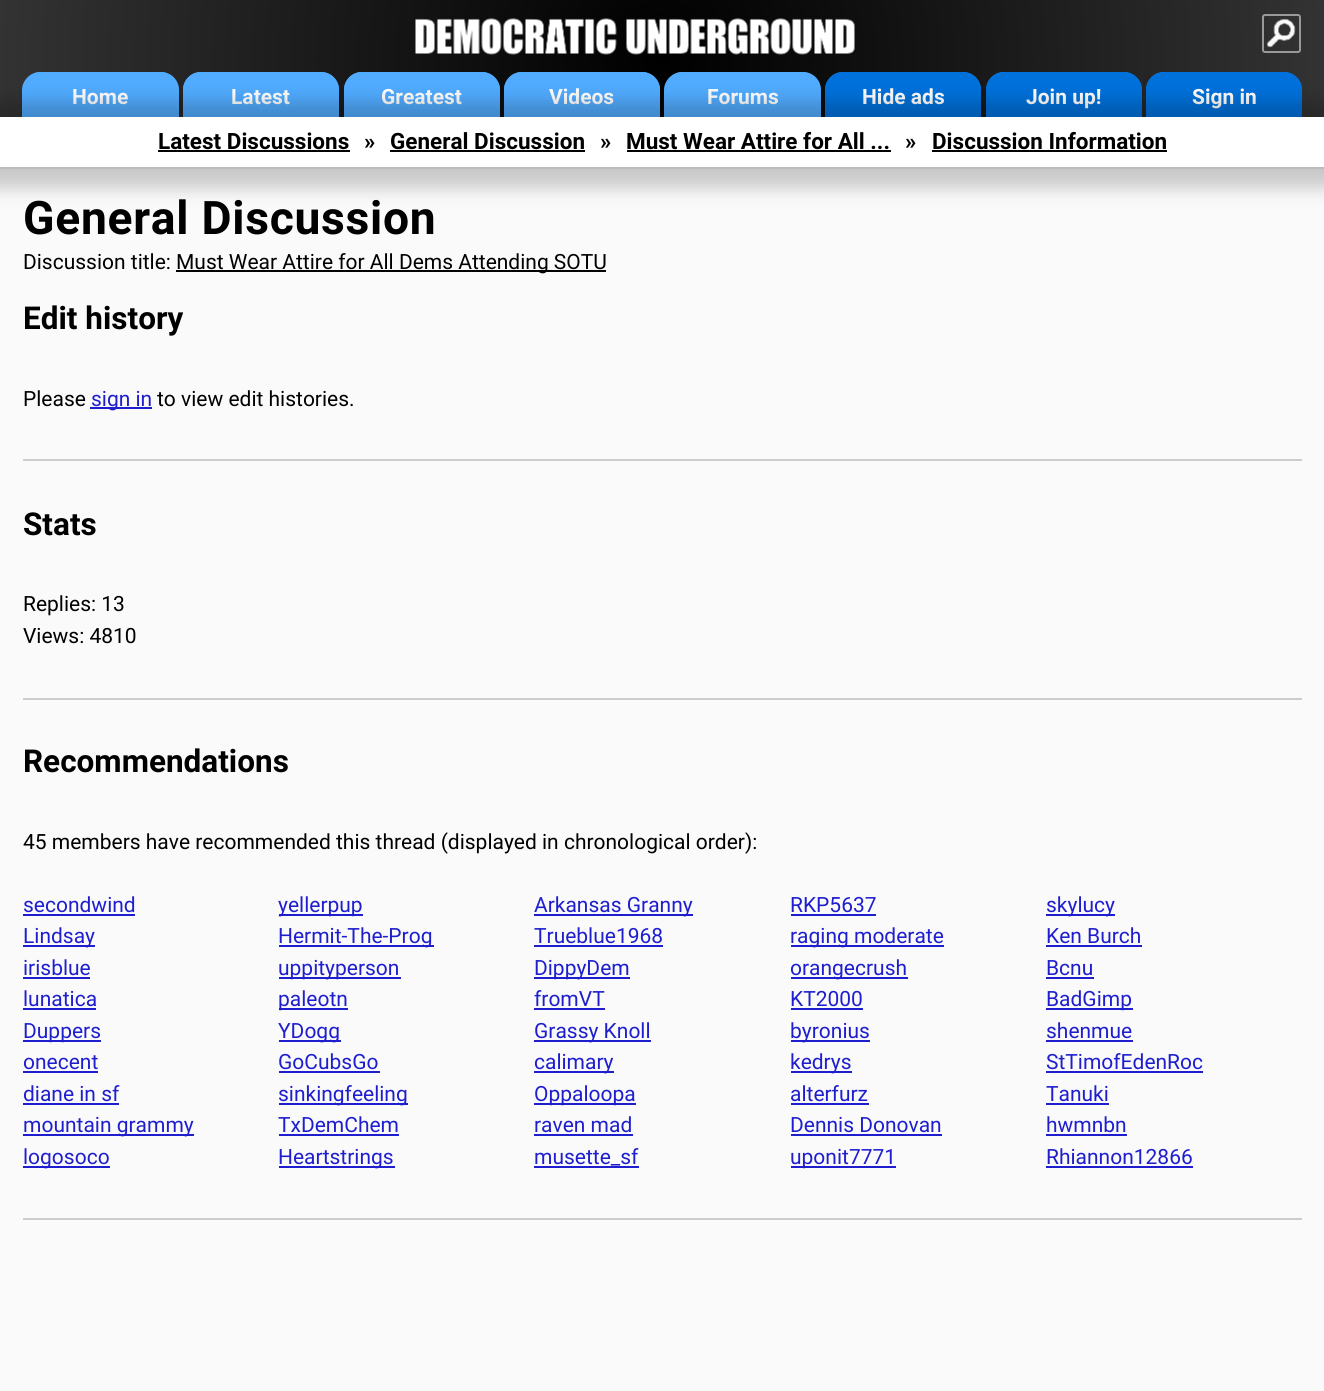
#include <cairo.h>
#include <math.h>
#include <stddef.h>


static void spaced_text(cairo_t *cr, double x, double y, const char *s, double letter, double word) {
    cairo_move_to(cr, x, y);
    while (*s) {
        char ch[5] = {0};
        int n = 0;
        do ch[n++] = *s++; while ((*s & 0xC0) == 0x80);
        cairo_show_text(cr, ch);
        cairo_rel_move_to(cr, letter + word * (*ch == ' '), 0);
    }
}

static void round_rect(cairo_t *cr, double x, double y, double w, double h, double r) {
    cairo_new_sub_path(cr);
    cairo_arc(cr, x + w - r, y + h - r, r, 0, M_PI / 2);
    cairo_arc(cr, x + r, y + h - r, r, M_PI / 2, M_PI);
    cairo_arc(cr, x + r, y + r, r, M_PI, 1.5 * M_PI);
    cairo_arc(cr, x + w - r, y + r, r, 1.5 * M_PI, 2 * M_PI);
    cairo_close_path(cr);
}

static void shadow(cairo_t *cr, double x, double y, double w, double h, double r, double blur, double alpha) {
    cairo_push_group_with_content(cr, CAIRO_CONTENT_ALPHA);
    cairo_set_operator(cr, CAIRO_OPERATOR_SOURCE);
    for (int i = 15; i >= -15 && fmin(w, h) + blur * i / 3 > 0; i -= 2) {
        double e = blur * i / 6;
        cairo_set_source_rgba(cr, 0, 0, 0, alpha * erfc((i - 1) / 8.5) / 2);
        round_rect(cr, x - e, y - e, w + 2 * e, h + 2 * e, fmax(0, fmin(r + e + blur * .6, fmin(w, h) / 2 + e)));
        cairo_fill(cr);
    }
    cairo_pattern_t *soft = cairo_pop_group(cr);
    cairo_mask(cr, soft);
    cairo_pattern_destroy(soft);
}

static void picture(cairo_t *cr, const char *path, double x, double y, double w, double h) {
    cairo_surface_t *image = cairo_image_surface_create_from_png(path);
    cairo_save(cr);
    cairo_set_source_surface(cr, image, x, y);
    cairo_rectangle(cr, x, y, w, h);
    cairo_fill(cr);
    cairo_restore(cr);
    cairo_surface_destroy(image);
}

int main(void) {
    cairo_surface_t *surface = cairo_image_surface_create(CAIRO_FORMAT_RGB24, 1324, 1391);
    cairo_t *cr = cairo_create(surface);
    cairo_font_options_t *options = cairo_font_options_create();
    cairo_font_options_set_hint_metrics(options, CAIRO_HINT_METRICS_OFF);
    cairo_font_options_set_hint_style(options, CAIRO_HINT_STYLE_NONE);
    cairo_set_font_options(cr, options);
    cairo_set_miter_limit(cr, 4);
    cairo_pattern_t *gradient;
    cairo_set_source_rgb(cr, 0.98, 0.98, 0.98);
    cairo_paint(cr);
    gradient = cairo_pattern_create_radial(662, 59, 0, 662, 59, 665);
    cairo_pattern_add_color_stop_rgba(gradient, 0, 0, 0, 0, 1);
    cairo_pattern_add_color_stop_rgba(gradient, 1, 0.2, 0.2, 0.2, 1);
    cairo_set_source(cr, gradient);
    cairo_pattern_destroy(gradient);
    cairo_rectangle(cr, 0, 0, 1324, 117);
    cairo_fill(cr);
    picture(cr, "img1.png", 1266, 18, 30, 30);
    round_rect(cr, 1263, 15, 37, 37, 2);
    cairo_set_source_rgb(cr, 0.6, 0.6, 0.6);
    cairo_stroke(cr);
    picture(cr, "img2.png", 415, 18, 440, 37);
    cairo_set_source_rgb(cr, 0.318, 0.671, 1);
    cairo_new_path(cr);
    cairo_move_to(cr, 41, 72);
    cairo_line_to(cr, 161, 72);
    cairo_curve_to(cr, 171, 72, 179, 80, 179, 90);
    cairo_line_to(cr, 179, 117);
    cairo_line_to(cr, 23, 117);
    cairo_line_to(cr, 23, 90);
    cairo_curve_to(cr, 23, 80, 31, 72, 41, 72);
    cairo_close_path(cr);
    cairo_fill(cr);
    cairo_set_fill_rule(cr, CAIRO_FILL_RULE_EVEN_ODD);
    cairo_new_path(cr);
    cairo_move_to(cr, 40, 72);
    cairo_line_to(cr, 160, 72);
    cairo_curve_to(cr, 170, 72, 178, 80, 178, 90);
    cairo_line_to(cr, 178, 117);
    cairo_line_to(cr, 22, 117);
    cairo_line_to(cr, 22, 90);
    cairo_curve_to(cr, 22, 80, 31, 72, 40, 72);
    cairo_close_path(cr);
    cairo_move_to(cr, 40, 74);
    cairo_line_to(cr, 160, 74);
    cairo_curve_to(cr, 170, 74, 177, 81, 177, 90);
    cairo_line_to(cr, 177, 117);
    cairo_line_to(cr, 24, 117);
    cairo_line_to(cr, 24, 90);
    cairo_curve_to(cr, 24, 81, 31, 74, 40, 74);
    cairo_close_path(cr);
    cairo_fill(cr);
    cairo_select_font_face(cr, "Roboto", CAIRO_FONT_SLANT_NORMAL, CAIRO_FONT_WEIGHT_BOLD);
    cairo_set_font_size(cr, 21);
    cairo_set_source_rgb(cr, 1, 1, 1);
    cairo_move_to(cr, 72, 104);
    cairo_show_text(cr, "Home");
    cairo_set_source_rgb(cr, 0.318, 0.671, 1);
    cairo_new_path(cr);
    cairo_move_to(cr, 201, 72);
    cairo_line_to(cr, 321, 72);
    cairo_curve_to(cr, 331, 72, 339, 80, 339, 90);
    cairo_line_to(cr, 339, 117);
    cairo_line_to(cr, 183, 117);
    cairo_line_to(cr, 183, 90);
    cairo_curve_to(cr, 183, 80, 191, 72, 201, 72);
    cairo_close_path(cr);
    cairo_fill(cr);
    cairo_new_path(cr);
    cairo_move_to(cr, 201, 72);
    cairo_line_to(cr, 321, 72);
    cairo_curve_to(cr, 331, 72, 339, 80, 339, 90);
    cairo_line_to(cr, 339, 117);
    cairo_line_to(cr, 183, 117);
    cairo_line_to(cr, 183, 90);
    cairo_curve_to(cr, 183, 80, 191, 72, 201, 72);
    cairo_close_path(cr);
    cairo_move_to(cr, 201, 74);
    cairo_line_to(cr, 321, 74);
    cairo_curve_to(cr, 330, 74, 338, 81, 338, 90);
    cairo_line_to(cr, 338, 117);
    cairo_line_to(cr, 184, 117);
    cairo_line_to(cr, 184, 90);
    cairo_curve_to(cr, 184, 81, 192, 74, 201, 74);
    cairo_close_path(cr);
    cairo_fill(cr);
    cairo_set_source_rgb(cr, 1, 1, 1);
    cairo_move_to(cr, 231, 104);
    cairo_show_text(cr, "Latest");
    cairo_set_source_rgb(cr, 0.318, 0.671, 1);
    cairo_new_path(cr);
    cairo_move_to(cr, 362, 72);
    cairo_line_to(cr, 482, 72);
    cairo_curve_to(cr, 492, 72, 500, 80, 500, 90);
    cairo_line_to(cr, 500, 117);
    cairo_line_to(cr, 344, 117);
    cairo_line_to(cr, 344, 90);
    cairo_curve_to(cr, 344, 80, 352, 72, 362, 72);
    cairo_close_path(cr);
    cairo_fill(cr);
    cairo_new_path(cr);
    cairo_move_to(cr, 362, 72);
    cairo_line_to(cr, 482, 72);
    cairo_curve_to(cr, 491, 72, 500, 80, 500, 90);
    cairo_line_to(cr, 500, 117);
    cairo_line_to(cr, 344, 117);
    cairo_line_to(cr, 344, 90);
    cairo_curve_to(cr, 344, 80, 352, 72, 362, 72);
    cairo_close_path(cr);
    cairo_move_to(cr, 362, 74);
    cairo_line_to(cr, 482, 74);
    cairo_curve_to(cr, 491, 74, 498, 81, 498, 90);
    cairo_line_to(cr, 498, 117);
    cairo_line_to(cr, 345, 117);
    cairo_line_to(cr, 345, 90);
    cairo_curve_to(cr, 345, 81, 352, 74, 362, 74);
    cairo_close_path(cr);
    cairo_fill(cr);
    cairo_set_source_rgb(cr, 1, 1, 1);
    cairo_move_to(cr, 381, 104);
    cairo_show_text(cr, "Greatest");
    cairo_set_source_rgb(cr, 0.318, 0.671, 1);
    cairo_new_path(cr);
    cairo_move_to(cr, 522, 72);
    cairo_line_to(cr, 642, 72);
    cairo_curve_to(cr, 652, 72, 660, 80, 660, 90);
    cairo_line_to(cr, 660, 117);
    cairo_line_to(cr, 504, 117);
    cairo_line_to(cr, 504, 90);
    cairo_curve_to(cr, 504, 80, 512, 72, 522, 72);
    cairo_close_path(cr);
    cairo_fill(cr);
    cairo_new_path(cr);
    cairo_move_to(cr, 522, 72);
    cairo_line_to(cr, 642, 72);
    cairo_curve_to(cr, 652, 72, 660, 80, 660, 90);
    cairo_line_to(cr, 660, 117);
    cairo_line_to(cr, 504, 117);
    cairo_line_to(cr, 504, 90);
    cairo_curve_to(cr, 504, 80, 512, 72, 522, 72);
    cairo_close_path(cr);
    cairo_move_to(cr, 522, 74);
    cairo_line_to(cr, 642, 74);
    cairo_curve_to(cr, 651, 74, 658, 81, 658, 90);
    cairo_line_to(cr, 658, 117);
    cairo_line_to(cr, 506, 117);
    cairo_line_to(cr, 506, 90);
    cairo_curve_to(cr, 506, 81, 513, 74, 522, 74);
    cairo_close_path(cr);
    cairo_fill(cr);
    cairo_set_source_rgb(cr, 1, 1, 1);
    cairo_move_to(cr, 549, 104);
    cairo_show_text(cr, "Videos");
    cairo_set_source_rgb(cr, 0.318, 0.671, 1);
    cairo_new_path(cr);
    cairo_move_to(cr, 683, 72);
    cairo_line_to(cr, 803, 72);
    cairo_curve_to(cr, 813, 72, 821, 80, 821, 90);
    cairo_line_to(cr, 821, 117);
    cairo_line_to(cr, 665, 117);
    cairo_line_to(cr, 665, 90);
    cairo_curve_to(cr, 665, 80, 673, 72, 683, 72);
    cairo_close_path(cr);
    cairo_fill(cr);
    cairo_new_path(cr);
    cairo_move_to(cr, 682, 72);
    cairo_line_to(cr, 802, 72);
    cairo_curve_to(cr, 812, 72, 820, 80, 820, 90);
    cairo_line_to(cr, 820, 117);
    cairo_line_to(cr, 664, 117);
    cairo_line_to(cr, 664, 90);
    cairo_curve_to(cr, 664, 80, 673, 72, 682, 72);
    cairo_close_path(cr);
    cairo_move_to(cr, 682, 74);
    cairo_line_to(cr, 802, 74);
    cairo_curve_to(cr, 812, 74, 819, 81, 819, 90);
    cairo_line_to(cr, 819, 117);
    cairo_line_to(cr, 666, 117);
    cairo_line_to(cr, 666, 90);
    cairo_curve_to(cr, 666, 81, 673, 74, 682, 74);
    cairo_close_path(cr);
    cairo_fill(cr);
    cairo_set_source_rgb(cr, 1, 1, 1);
    cairo_move_to(cr, 707, 104);
    cairo_show_text(cr, "Forums");
    cairo_set_source_rgb(cr, 0, 0.443, 0.859);
    cairo_new_path(cr);
    cairo_move_to(cr, 843, 72);
    cairo_line_to(cr, 963, 72);
    cairo_curve_to(cr, 973, 72, 981, 80, 981, 90);
    cairo_line_to(cr, 981, 117);
    cairo_line_to(cr, 825, 117);
    cairo_line_to(cr, 825, 90);
    cairo_curve_to(cr, 825, 80, 833, 72, 843, 72);
    cairo_close_path(cr);
    cairo_fill(cr);
    cairo_new_path(cr);
    cairo_move_to(cr, 843, 72);
    cairo_line_to(cr, 963, 72);
    cairo_curve_to(cr, 973, 72, 981, 80, 981, 90);
    cairo_line_to(cr, 981, 117);
    cairo_line_to(cr, 825, 117);
    cairo_line_to(cr, 825, 90);
    cairo_curve_to(cr, 825, 80, 833, 72, 843, 72);
    cairo_close_path(cr);
    cairo_move_to(cr, 843, 74);
    cairo_line_to(cr, 963, 74);
    cairo_curve_to(cr, 972, 74, 980, 81, 980, 90);
    cairo_line_to(cr, 980, 117);
    cairo_line_to(cr, 826, 117);
    cairo_line_to(cr, 826, 90);
    cairo_curve_to(cr, 826, 81, 834, 74, 843, 74);
    cairo_close_path(cr);
    cairo_fill(cr);
    cairo_set_source_rgb(cr, 1, 1, 1);
    cairo_move_to(cr, 862, 104);
    cairo_show_text(cr, "Hide ads");
    cairo_set_source_rgb(cr, 0, 0.443, 0.859);
    cairo_new_path(cr);
    cairo_move_to(cr, 1004, 72);
    cairo_line_to(cr, 1124, 72);
    cairo_curve_to(cr, 1134, 72, 1142, 80, 1142, 90);
    cairo_line_to(cr, 1142, 117);
    cairo_line_to(cr, 986, 117);
    cairo_line_to(cr, 986, 90);
    cairo_curve_to(cr, 986, 80, 994, 72, 1004, 72);
    cairo_close_path(cr);
    cairo_fill(cr);
    cairo_new_path(cr);
    cairo_move_to(cr, 1004, 72);
    cairo_line_to(cr, 1124, 72);
    cairo_curve_to(cr, 1133, 72, 1142, 80, 1142, 90);
    cairo_line_to(cr, 1142, 117);
    cairo_line_to(cr, 986, 117);
    cairo_line_to(cr, 986, 90);
    cairo_curve_to(cr, 986, 80, 994, 72, 1004, 72);
    cairo_close_path(cr);
    cairo_move_to(cr, 1004, 74);
    cairo_line_to(cr, 1124, 74);
    cairo_curve_to(cr, 1133, 74, 1140, 81, 1140, 90);
    cairo_line_to(cr, 1140, 117);
    cairo_line_to(cr, 987, 117);
    cairo_line_to(cr, 987, 90);
    cairo_curve_to(cr, 987, 81, 994, 74, 1004, 74);
    cairo_close_path(cr);
    cairo_fill(cr);
    cairo_set_source_rgb(cr, 1, 1, 1);
    cairo_move_to(cr, 1026, 104);
    cairo_show_text(cr, "Join up!");
    cairo_set_source_rgb(cr, 0, 0.443, 0.859);
    cairo_new_path(cr);
    cairo_move_to(cr, 1164, 72);
    cairo_line_to(cr, 1284, 72);
    cairo_curve_to(cr, 1294, 72, 1302, 80, 1302, 90);
    cairo_line_to(cr, 1302, 117);
    cairo_line_to(cr, 1146, 117);
    cairo_line_to(cr, 1146, 90);
    cairo_curve_to(cr, 1146, 80, 1154, 72, 1164, 72);
    cairo_close_path(cr);
    cairo_fill(cr);
    cairo_new_path(cr);
    cairo_move_to(cr, 1164, 72);
    cairo_line_to(cr, 1284, 72);
    cairo_curve_to(cr, 1294, 72, 1302, 80, 1302, 90);
    cairo_line_to(cr, 1302, 117);
    cairo_line_to(cr, 1146, 117);
    cairo_line_to(cr, 1146, 90);
    cairo_curve_to(cr, 1146, 80, 1154, 72, 1164, 72);
    cairo_close_path(cr);
    cairo_move_to(cr, 1164, 74);
    cairo_line_to(cr, 1284, 74);
    cairo_curve_to(cr, 1293, 74, 1300, 81, 1300, 90);
    cairo_line_to(cr, 1300, 117);
    cairo_line_to(cr, 1148, 117);
    cairo_line_to(cr, 1148, 90);
    cairo_curve_to(cr, 1148, 81, 1155, 74, 1164, 74);
    cairo_close_path(cr);
    cairo_fill(cr);
    cairo_set_source_rgb(cr, 1, 1, 1);
    cairo_move_to(cr, 1192, 104);
    cairo_show_text(cr, "Sign in");
    cairo_set_source_rgb(cr, 0, 0, 0);
    shadow(cr, -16, 101, 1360, 87, 0, 9, 0.2);
    cairo_set_source_rgb(cr, 1, 1, 1);
    cairo_rectangle(cr, 0, 117, 1324, 50);
    cairo_fill(cr);
    cairo_set_source_rgb(cr, 0.733, 0.733, 0.733);
    cairo_rectangle(cr, 0, 167, 1324, 2);
    cairo_fill(cr);
    cairo_set_font_size(cr, 22.5);
    cairo_set_source_rgb(cr, 0, 0, 0);
    cairo_move_to(cr, 158, 149);
    cairo_show_text(cr, "Latest Discussions");
    cairo_rectangle(cr, 158, 150, 192, 2);
    cairo_fill(cr);
    cairo_move_to(cr, 364, 149);
    cairo_show_text(cr, "»");
    cairo_move_to(cr, 390, 149);
    cairo_show_text(cr, "General Discussion");
    cairo_rectangle(cr, 390, 150, 195, 2);
    cairo_fill(cr);
    cairo_move_to(cr, 600, 149);
    cairo_show_text(cr, "»");
    cairo_move_to(cr, 626, 149);
    cairo_show_text(cr, "Must Wear Attire for All ...");
    cairo_rectangle(cr, 627, 150, 264, 2);
    cairo_fill(cr);
    cairo_move_to(cr, 905, 149);
    cairo_show_text(cr, "»");
    cairo_move_to(cr, 932, 149);
    cairo_show_text(cr, "Discussion Information");
    cairo_rectangle(cr, 932, 150, 235, 2);
    cairo_fill(cr);
    cairo_set_font_size(cr, 46.25);
    spaced_text(cr, 23, 234, "General Discussion", 0.7, 0);
    cairo_select_font_face(cr, "Roboto", CAIRO_FONT_SLANT_NORMAL, CAIRO_FONT_WEIGHT_NORMAL);
    cairo_set_font_size(cr, 21);
    cairo_move_to(cr, 23, 269);
    cairo_show_text(cr, "Discussion title:");
    cairo_rectangle(cr, 176, 270, 430, 2);
    cairo_fill(cr);
    cairo_move_to(cr, 176, 269);
    cairo_show_text(cr, "Must Wear Attire for All Dems Attending SOTU");
    cairo_set_source_rgb(cr, 0.8, 0.8, 0.8);
    cairo_rectangle(cr, 23, 459, 1279, 2);
    cairo_fill(cr);
    cairo_select_font_face(cr, "Roboto", CAIRO_FONT_SLANT_NORMAL, CAIRO_FONT_WEIGHT_BOLD);
    cairo_set_font_size(cr, 31.5);
    cairo_set_source_rgb(cr, 0, 0, 0);
    cairo_move_to(cr, 23, 329);
    cairo_show_text(cr, "Edit history");
    cairo_select_font_face(cr, "Roboto", CAIRO_FONT_SLANT_NORMAL, CAIRO_FONT_WEIGHT_NORMAL);
    cairo_set_font_size(cr, 21);
    cairo_move_to(cr, 23, 406);
    cairo_show_text(cr, "Please");
    cairo_set_source_rgb(cr, 0.118, 0.118, 0.812);
    cairo_rectangle(cr, 90, 407, 62, 2);
    cairo_fill(cr);
    cairo_move_to(cr, 91, 406);
    cairo_show_text(cr, "sign in");
    cairo_set_source_rgb(cr, 0, 0, 0);
    cairo_move_to(cr, 157, 406);
    cairo_show_text(cr, "to view edit histories.");
    cairo_set_source_rgb(cr, 0.8, 0.8, 0.8);
    cairo_rectangle(cr, 23, 698, 1279, 2);
    cairo_fill(cr);
    cairo_select_font_face(cr, "Roboto", CAIRO_FONT_SLANT_NORMAL, CAIRO_FONT_WEIGHT_BOLD);
    cairo_set_font_size(cr, 31.5);
    cairo_set_source_rgb(cr, 0, 0, 0);
    cairo_move_to(cr, 23, 535);
    cairo_show_text(cr, "Stats");
    cairo_select_font_face(cr, "Roboto", CAIRO_FONT_SLANT_NORMAL, CAIRO_FONT_WEIGHT_NORMAL);
    cairo_set_font_size(cr, 21);
    cairo_move_to(cr, 23, 611);
    cairo_show_text(cr, "Replies: 13");
    cairo_move_to(cr, 23, 643);
    cairo_show_text(cr, "Views: 4810");
    cairo_set_source_rgb(cr, 0.8, 0.8, 0.8);
    cairo_rectangle(cr, 23, 1218, 1279, 2);
    cairo_fill(cr);
    cairo_select_font_face(cr, "Roboto", CAIRO_FONT_SLANT_NORMAL, CAIRO_FONT_WEIGHT_BOLD);
    cairo_set_font_size(cr, 31.5);
    cairo_set_source_rgb(cr, 0, 0, 0);
    cairo_move_to(cr, 23, 772);
    cairo_show_text(cr, "Recommendations");
    cairo_select_font_face(cr, "Roboto", CAIRO_FONT_SLANT_NORMAL, CAIRO_FONT_WEIGHT_NORMAL);
    cairo_set_font_size(cr, 21);
    cairo_move_to(cr, 23, 849);
    cairo_show_text(cr, "45 members have recommended this thread (displayed in chronological order):");
    cairo_set_source_rgb(cr, 0.118, 0.118, 0.812);
    cairo_move_to(cr, 23, 912);
    cairo_show_text(cr, "secondwind");
    cairo_rectangle(cr, 23, 914, 112, 2);
    cairo_fill(cr);
    cairo_rectangle(cr, 279, 914, 84, 2);
    cairo_fill(cr);
    cairo_move_to(cr, 278, 912);
    cairo_show_text(cr, "yellerpup");
    cairo_rectangle(cr, 534, 914, 159, 2);
    cairo_fill(cr);
    cairo_move_to(cr, 534, 912);
    cairo_show_text(cr, "Arkansas Granny");
    cairo_move_to(cr, 790, 912);
    cairo_show_text(cr, "RKP5637");
    cairo_rectangle(cr, 791, 914, 85, 2);
    cairo_fill(cr);
    cairo_rectangle(cr, 1046, 914, 69, 2);
    cairo_fill(cr);
    cairo_move_to(cr, 1046, 912);
    cairo_show_text(cr, "skylucy");
    cairo_rectangle(cr, 23, 945, 72, 2);
    cairo_fill(cr);
    cairo_move_to(cr, 23, 943);
    cairo_show_text(cr, "Lindsay");
    cairo_rectangle(cr, 279, 945, 155, 2);
    cairo_fill(cr);
    cairo_move_to(cr, 278, 943);
    cairo_show_text(cr, "Hermit-The-Prog");
    cairo_move_to(cr, 534, 943);
    cairo_show_text(cr, "Trueblue1968");
    cairo_rectangle(cr, 534, 945, 129, 2);
    cairo_fill(cr);
    cairo_rectangle(cr, 791, 945, 153, 2);
    cairo_fill(cr);
    cairo_move_to(cr, 790, 943);
    cairo_show_text(cr, "raging moderate");
    cairo_move_to(cr, 1046, 943);
    cairo_show_text(cr, "Ken Burch");
    cairo_rectangle(cr, 1046, 945, 96, 2);
    cairo_fill(cr);
    cairo_move_to(cr, 23, 975);
    cairo_show_text(cr, "irisblue");
    cairo_rectangle(cr, 23, 977, 67, 2);
    cairo_fill(cr);
    cairo_rectangle(cr, 279, 977, 122, 2);
    cairo_fill(cr);
    cairo_move_to(cr, 278, 975);
    cairo_show_text(cr, "uppityperson");
    cairo_rectangle(cr, 534, 977, 96, 2);
    cairo_fill(cr);
    cairo_move_to(cr, 534, 975);
    cairo_show_text(cr, "DippyDem");
    cairo_rectangle(cr, 791, 977, 117, 2);
    cairo_fill(cr);
    cairo_move_to(cr, 790, 975);
    cairo_show_text(cr, "orangecrush");
    cairo_move_to(cr, 1046, 975);
    cairo_show_text(cr, "Bcnu");
    cairo_rectangle(cr, 1046, 977, 48, 2);
    cairo_fill(cr);
    cairo_move_to(cr, 23, 1006);
    cairo_show_text(cr, "lunatica");
    cairo_rectangle(cr, 23, 1008, 73, 2);
    cairo_fill(cr);
    cairo_rectangle(cr, 279, 1008, 69, 2);
    cairo_fill(cr);
    cairo_move_to(cr, 278, 1006);
    cairo_show_text(cr, "paleotn");
    cairo_move_to(cr, 534, 1006);
    cairo_show_text(cr, "fromVT");
    cairo_rectangle(cr, 534, 1008, 71, 2);
    cairo_fill(cr);
    cairo_move_to(cr, 790, 1006);
    cairo_show_text(cr, "KT2000");
    cairo_rectangle(cr, 791, 1008, 72, 2);
    cairo_fill(cr);
    cairo_rectangle(cr, 1046, 1008, 87, 2);
    cairo_fill(cr);
    cairo_move_to(cr, 1046, 1006);
    cairo_show_text(cr, "BadGimp");
    cairo_rectangle(cr, 23, 1040, 78, 2);
    cairo_fill(cr);
    cairo_move_to(cr, 23, 1038);
    cairo_show_text(cr, "Duppers");
    cairo_rectangle(cr, 279, 1040, 62, 2);
    cairo_fill(cr);
    cairo_move_to(cr, 278, 1038);
    cairo_show_text(cr, "YDogg");
    cairo_rectangle(cr, 534, 1040, 117, 2);
    cairo_fill(cr);
    cairo_move_to(cr, 534, 1038);
    cairo_show_text(cr, "Grassy Knoll");
    cairo_rectangle(cr, 791, 1040, 79, 2);
    cairo_fill(cr);
    cairo_move_to(cr, 790, 1038);
    cairo_show_text(cr, "byronius");
    cairo_move_to(cr, 1046, 1038);
    cairo_show_text(cr, "shenmue");
    cairo_rectangle(cr, 1046, 1040, 87, 2);
    cairo_fill(cr);
    cairo_move_to(cr, 23, 1069);
    cairo_show_text(cr, "onecent");
    cairo_rectangle(cr, 23, 1071, 75, 2);
    cairo_fill(cr);
    cairo_move_to(cr, 278, 1069);
    cairo_show_text(cr, "GoCubsGo");
    cairo_rectangle(cr, 279, 1071, 101, 2);
    cairo_fill(cr);
    cairo_rectangle(cr, 534, 1071, 80, 2);
    cairo_fill(cr);
    cairo_move_to(cr, 534, 1069);
    cairo_show_text(cr, "calimary");
    cairo_rectangle(cr, 791, 1071, 61, 2);
    cairo_fill(cr);
    cairo_move_to(cr, 790, 1069);
    cairo_show_text(cr, "kedrys");
    cairo_move_to(cr, 1046, 1069);
    cairo_show_text(cr, "StTimofEdenRoc");
    cairo_rectangle(cr, 1046, 1071, 157, 2);
    cairo_fill(cr);
    cairo_move_to(cr, 23, 1101);
    cairo_show_text(cr, "diane in sf");
    cairo_rectangle(cr, 23, 1103, 96, 2);
    cairo_fill(cr);
    cairo_rectangle(cr, 279, 1103, 129, 2);
    cairo_fill(cr);
    cairo_move_to(cr, 278, 1101);
    cairo_show_text(cr, "sinkingfeeling");
    cairo_rectangle(cr, 534, 1103, 102, 2);
    cairo_fill(cr);
    cairo_move_to(cr, 534, 1101);
    cairo_show_text(cr, "Oppaloopa");
    cairo_move_to(cr, 790, 1101);
    cairo_show_text(cr, "alterfurz");
    cairo_rectangle(cr, 791, 1103, 78, 2);
    cairo_fill(cr);
    cairo_move_to(cr, 1046, 1101);
    cairo_show_text(cr, "Tanuki");
    cairo_rectangle(cr, 1046, 1103, 63, 2);
    cairo_fill(cr);
    cairo_rectangle(cr, 23, 1134, 171, 2);
    cairo_fill(cr);
    cairo_move_to(cr, 23, 1132);
    cairo_show_text(cr, "mountain grammy");
    cairo_move_to(cr, 278, 1132);
    cairo_show_text(cr, "TxDemChem");
    cairo_rectangle(cr, 279, 1134, 120, 2);
    cairo_fill(cr);
    cairo_move_to(cr, 534, 1132);
    cairo_show_text(cr, "raven mad");
    cairo_rectangle(cr, 534, 1134, 99, 2);
    cairo_fill(cr);
    cairo_move_to(cr, 790, 1132);
    cairo_show_text(cr, "Dennis Donovan");
    cairo_rectangle(cr, 791, 1134, 151, 2);
    cairo_fill(cr);
    cairo_move_to(cr, 1046, 1132);
    cairo_show_text(cr, "hwmnbn");
    cairo_rectangle(cr, 1046, 1134, 81, 2);
    cairo_fill(cr);
    cairo_rectangle(cr, 23, 1166, 87, 2);
    cairo_fill(cr);
    cairo_move_to(cr, 23, 1164);
    cairo_show_text(cr, "logosoco");
    cairo_rectangle(cr, 279, 1166, 116, 2);
    cairo_fill(cr);
    cairo_move_to(cr, 278, 1164);
    cairo_show_text(cr, "Heartstrings");
    cairo_move_to(cr, 534, 1164);
    cairo_show_text(cr, "musette_sf");
    cairo_rectangle(cr, 534, 1166, 105, 2);
    cairo_fill(cr);
    cairo_rectangle(cr, 791, 1166, 105, 2);
    cairo_fill(cr);
    cairo_move_to(cr, 790, 1164);
    cairo_show_text(cr, "uponit7771");
    cairo_move_to(cr, 1046, 1164);
    cairo_show_text(cr, "Rhiannon12866");
    cairo_rectangle(cr, 1046, 1166, 147, 2);
    cairo_fill(cr);
    cairo_surface_write_to_png(surface, "page.png");
    cairo_font_options_destroy(options);
    cairo_destroy(cr);
    cairo_surface_destroy(surface);
    return 0;
}
